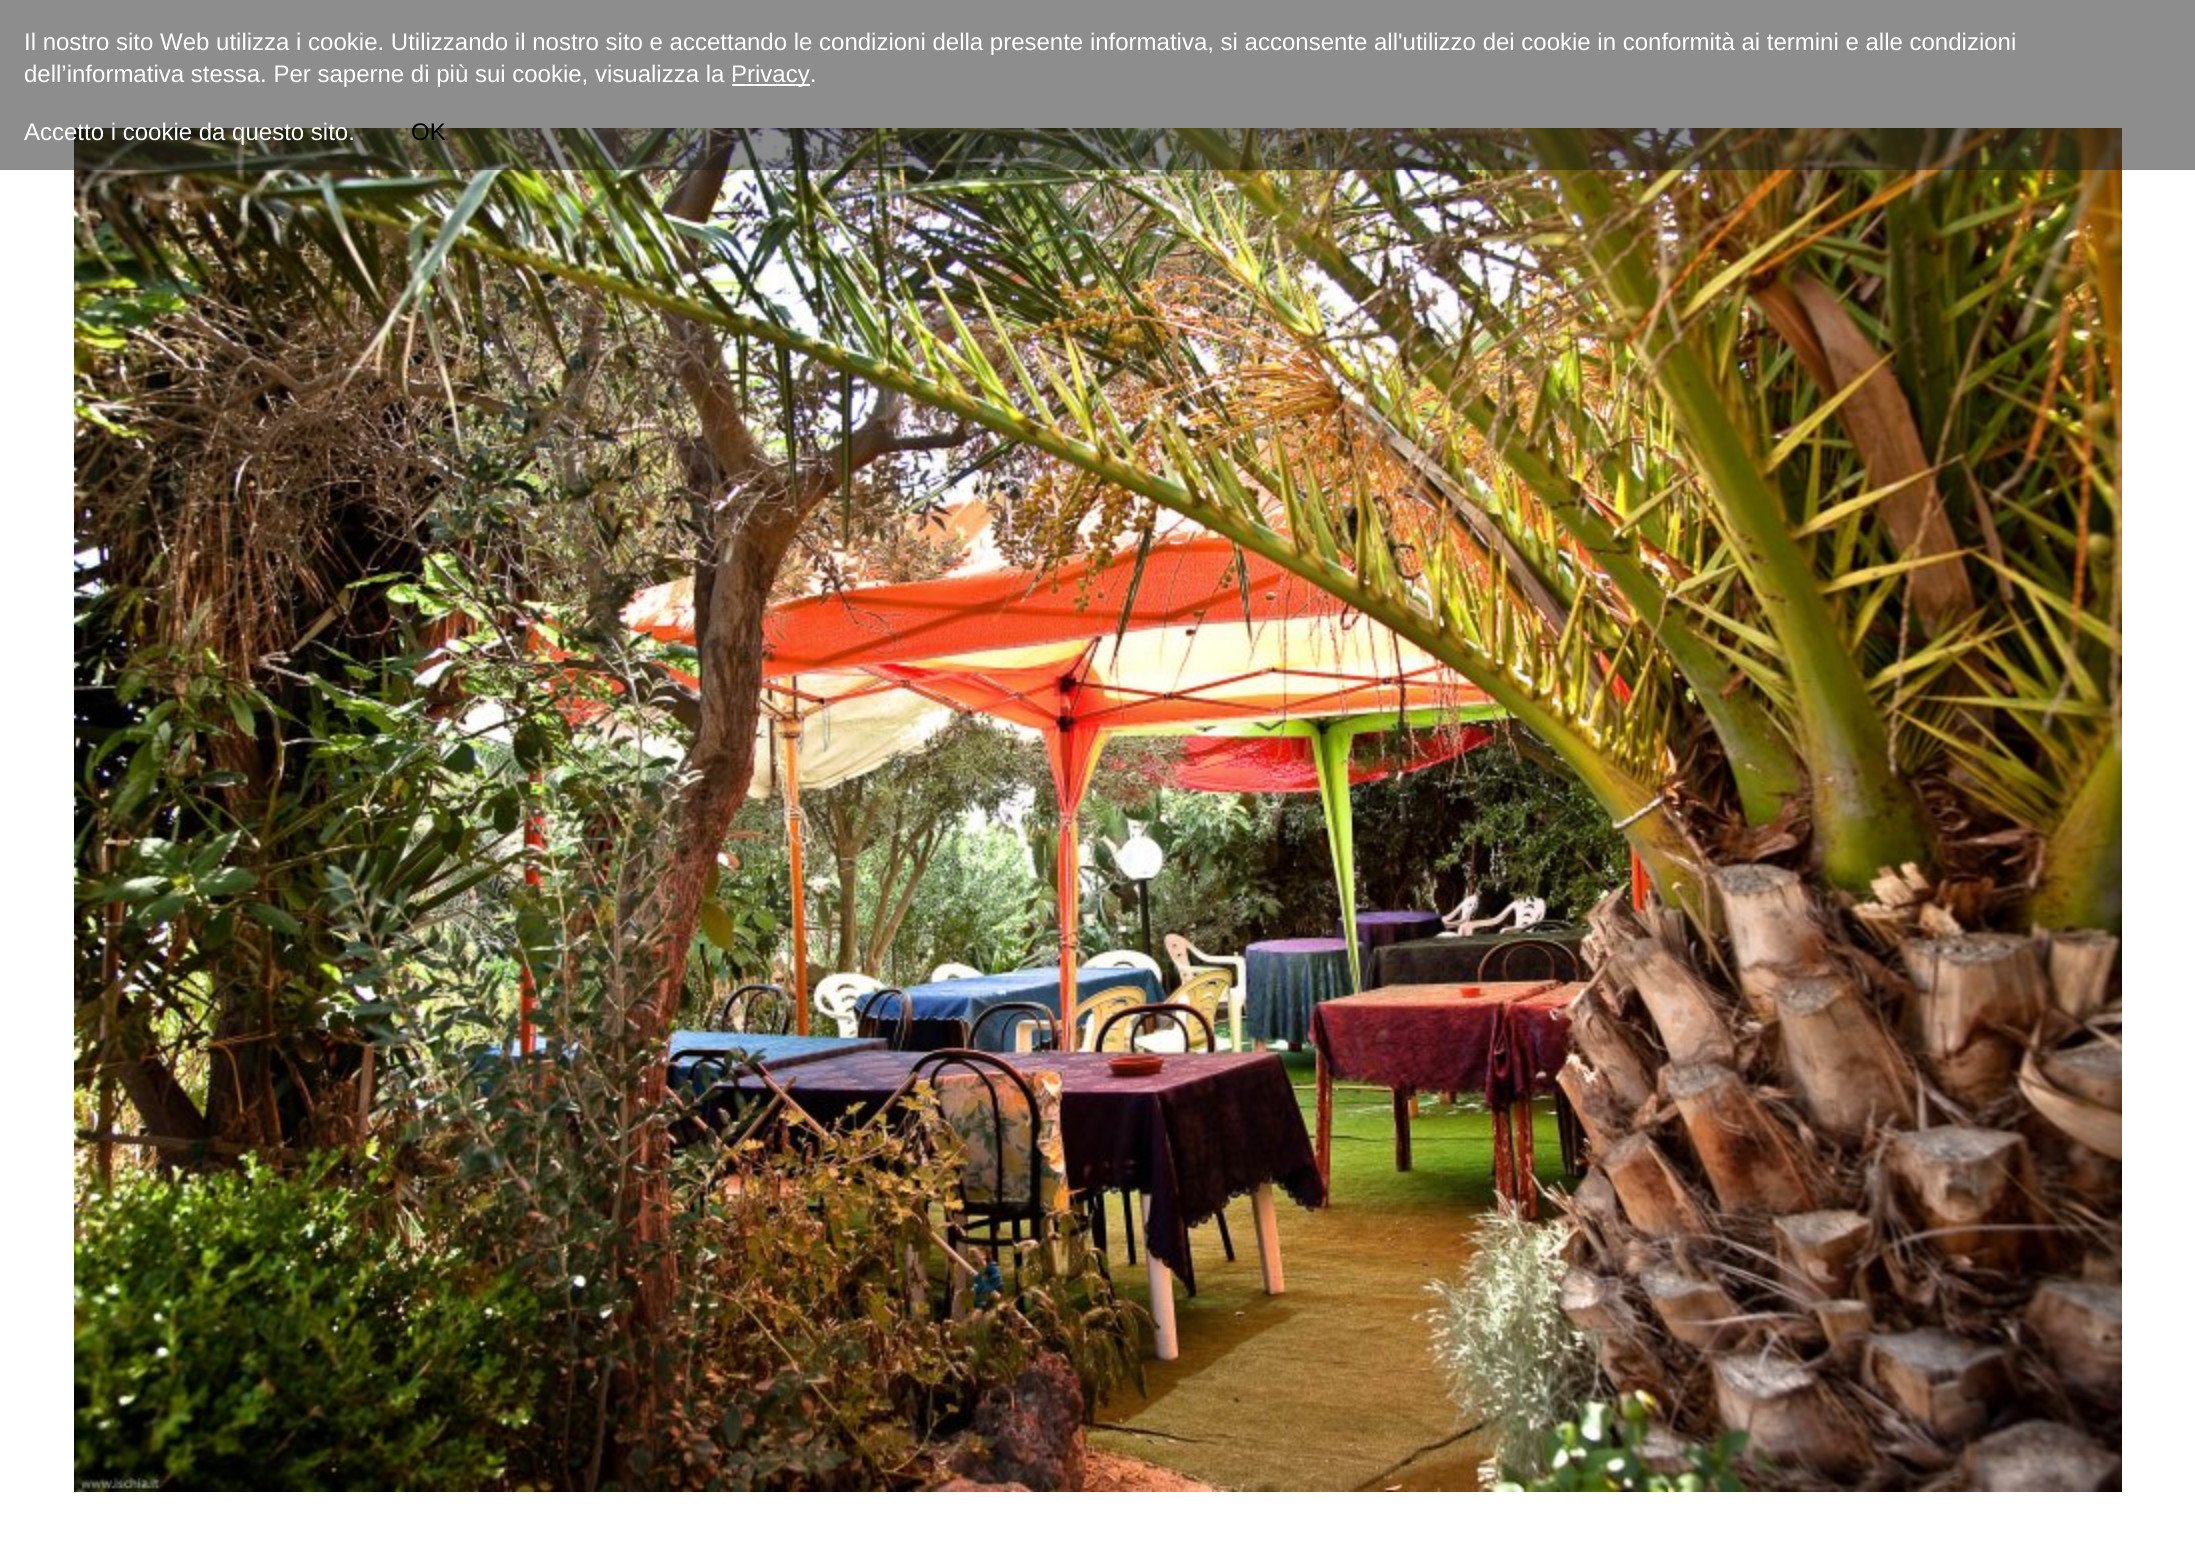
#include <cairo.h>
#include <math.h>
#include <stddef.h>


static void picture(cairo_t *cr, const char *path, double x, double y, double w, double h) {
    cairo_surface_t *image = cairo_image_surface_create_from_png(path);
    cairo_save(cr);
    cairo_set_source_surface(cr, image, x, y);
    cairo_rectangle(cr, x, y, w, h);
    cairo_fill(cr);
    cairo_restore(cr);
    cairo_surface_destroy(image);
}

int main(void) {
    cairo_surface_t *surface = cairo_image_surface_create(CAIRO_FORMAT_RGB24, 2195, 1547);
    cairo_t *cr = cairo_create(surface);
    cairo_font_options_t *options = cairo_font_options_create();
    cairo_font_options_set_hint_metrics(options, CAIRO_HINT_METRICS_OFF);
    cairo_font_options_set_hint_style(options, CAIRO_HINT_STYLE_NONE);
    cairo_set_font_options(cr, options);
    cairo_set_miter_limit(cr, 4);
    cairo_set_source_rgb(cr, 1, 1, 1);
    cairo_paint(cr);
    picture(cr, "img1.png", 74, 128, 2048, 1364);
    cairo_set_source_rgba(cr, 0.11, 0.11, 0.11, 0.5);
    cairo_rectangle(cr, 0, 0, 2195, 170);
    cairo_fill(cr);
    cairo_select_font_face(cr, "Liberation Sans", CAIRO_FONT_SLANT_NORMAL, CAIRO_FONT_WEIGHT_NORMAL);
    cairo_set_font_size(cr, 24);
    cairo_set_source_rgb(cr, 1, 1, 1);
    cairo_move_to(cr, 24, 50);
    cairo_show_text(cr, "Il nostro sito Web utilizza i cookie. Utilizzando il nostro sito e accettando le condizioni della presente informativa, si acconsente all'utilizzo dei cookie in conformità ai termini e alle condizioni");
    cairo_move_to(cr, 24, 82);
    cairo_show_text(cr, "dell’informativa stessa. Per saperne di più sui cookie, visualizza la");
    cairo_rectangle(cr, 732, 84, 78, 2);
    cairo_fill(cr);
    cairo_move_to(cr, 731, 82);
    cairo_show_text(cr, "Privacy.");
    cairo_move_to(cr, 24, 140);
    cairo_show_text(cr, "Accetto i cookie da questo sito.");
    cairo_set_source_rgb(cr, 0, 0, 0);
    cairo_move_to(cr, 411, 140);
    cairo_show_text(cr, "OK");
    cairo_surface_write_to_png(surface, "page.png");
    cairo_font_options_destroy(options);
    cairo_destroy(cr);
    cairo_surface_destroy(surface);
    return 0;
}
